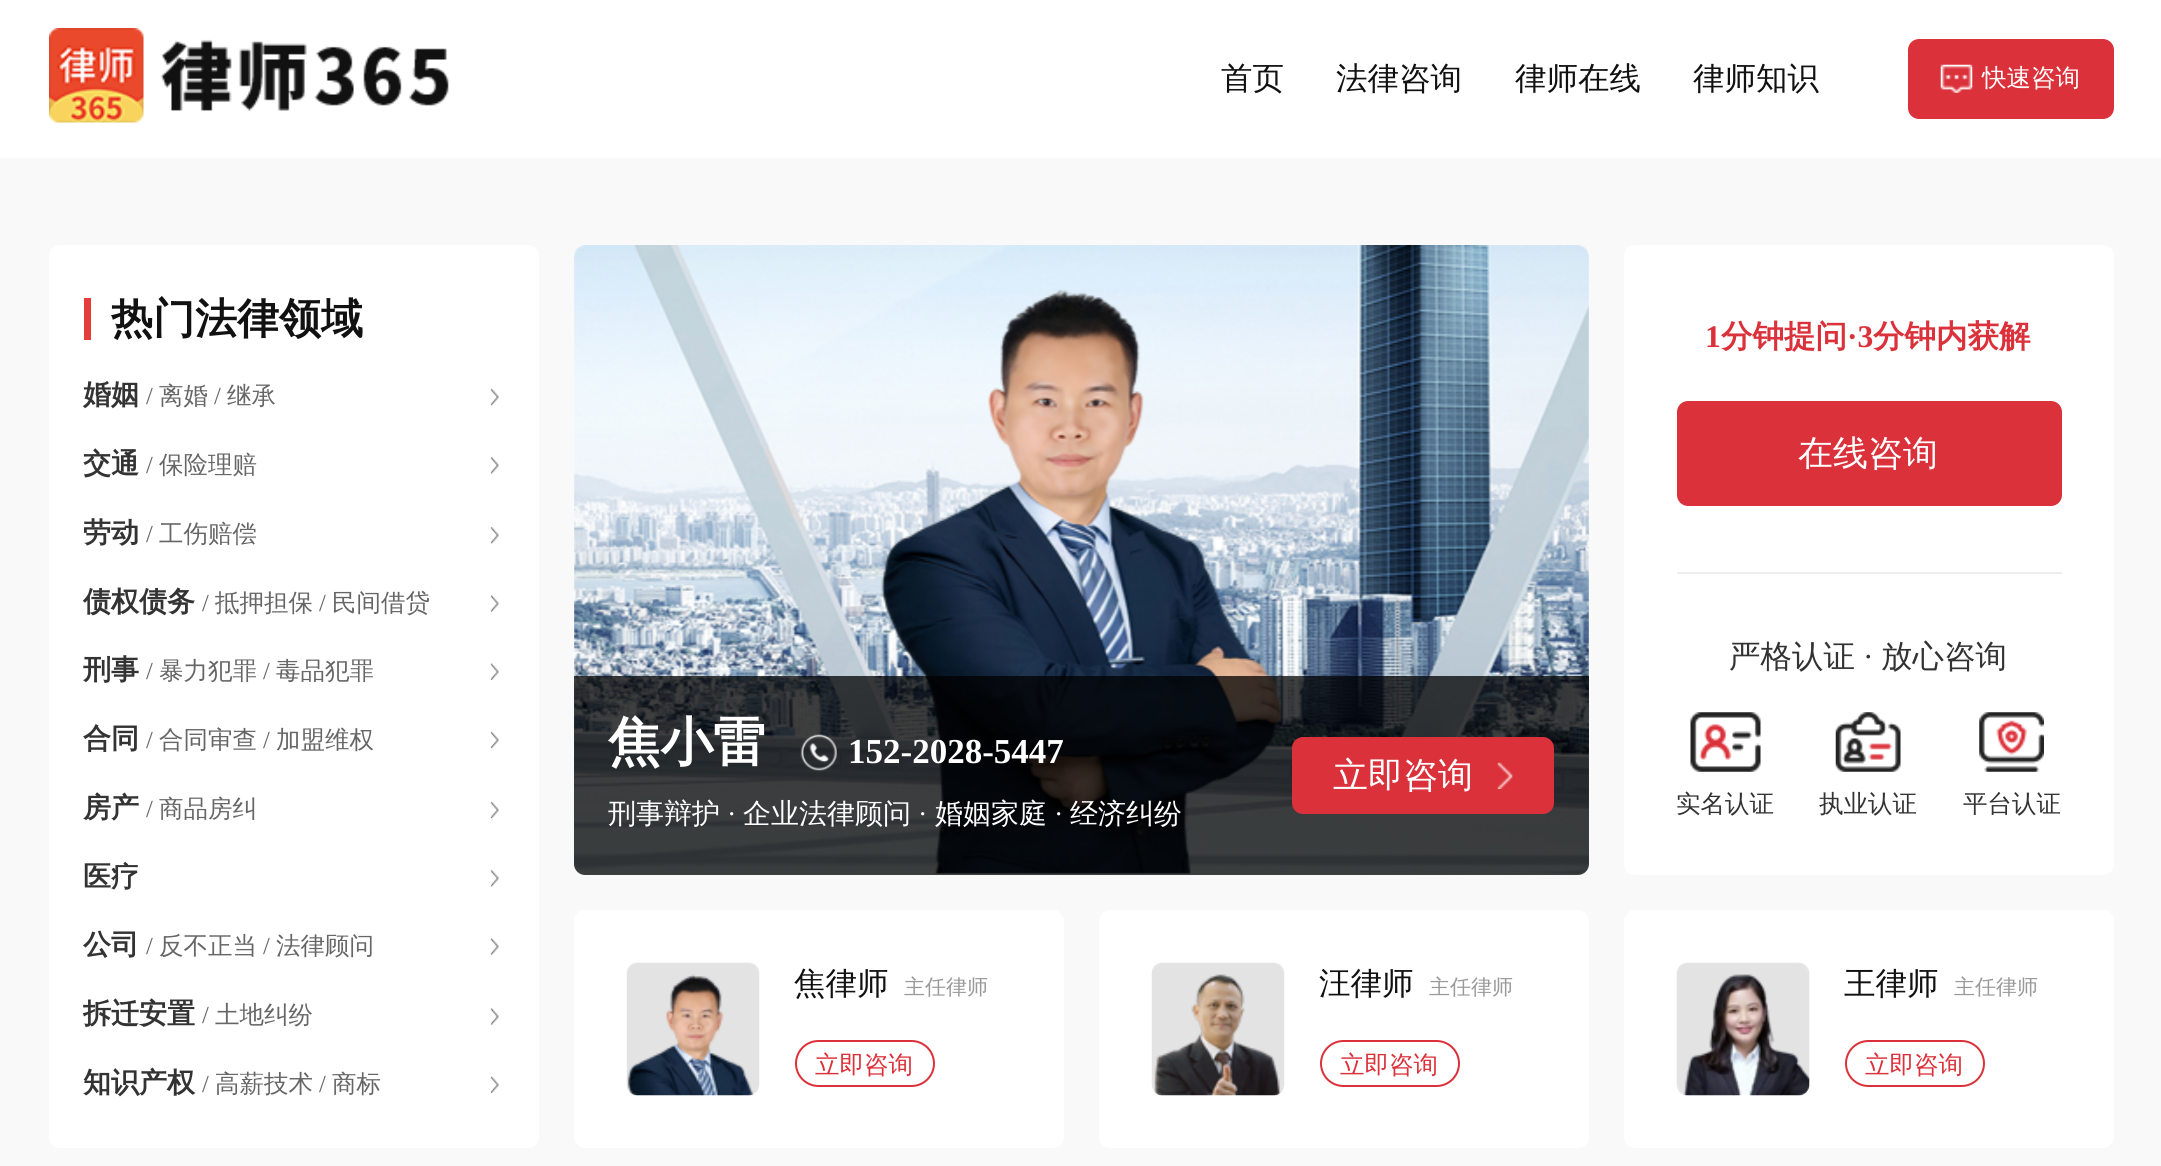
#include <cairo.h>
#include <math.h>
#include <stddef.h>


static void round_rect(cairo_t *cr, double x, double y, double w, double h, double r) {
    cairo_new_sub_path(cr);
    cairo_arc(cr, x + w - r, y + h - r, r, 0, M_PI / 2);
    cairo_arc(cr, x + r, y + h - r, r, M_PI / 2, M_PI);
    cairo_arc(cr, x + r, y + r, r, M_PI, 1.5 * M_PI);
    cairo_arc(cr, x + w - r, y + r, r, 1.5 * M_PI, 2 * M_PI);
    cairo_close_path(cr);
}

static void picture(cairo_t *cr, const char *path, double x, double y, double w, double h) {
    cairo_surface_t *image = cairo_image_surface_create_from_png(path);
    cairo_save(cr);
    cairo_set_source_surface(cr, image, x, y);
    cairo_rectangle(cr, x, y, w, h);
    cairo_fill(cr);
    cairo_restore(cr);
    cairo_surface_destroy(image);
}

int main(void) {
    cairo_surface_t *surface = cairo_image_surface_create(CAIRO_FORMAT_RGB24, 2161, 1166);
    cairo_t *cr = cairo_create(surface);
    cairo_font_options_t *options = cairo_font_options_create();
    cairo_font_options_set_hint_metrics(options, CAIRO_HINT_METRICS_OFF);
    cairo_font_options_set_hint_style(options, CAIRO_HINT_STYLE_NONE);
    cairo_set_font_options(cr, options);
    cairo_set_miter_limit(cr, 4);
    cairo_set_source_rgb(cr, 1, 1, 1);
    cairo_paint(cr);
    picture(cr, "img1.png", 49, 28, 400, 95);
    cairo_select_font_face(cr, "WenQuanYi Zen Hei Medium", CAIRO_FONT_SLANT_NORMAL, CAIRO_FONT_WEIGHT_NORMAL);
    cairo_set_font_size(cr, 31.5);
    cairo_set_source_rgb(cr, 0.067, 0.067, 0.067);
    cairo_move_to(cr, 1221, 89);
    cairo_show_text(cr, "首页");
    cairo_move_to(cr, 1336, 89);
    cairo_show_text(cr, "法律咨询");
    cairo_move_to(cr, 1515, 89);
    cairo_show_text(cr, "律师在线");
    cairo_move_to(cr, 1693, 89);
    cairo_show_text(cr, "律师知识");
    cairo_set_source_rgb(cr, 0.859, 0.192, 0.227);
    round_rect(cr, 1908, 39, 206, 80, 11);
    cairo_fill(cr);
    picture(cr, "img2.png", 1940, 64, 33, 29);
    cairo_set_font_size(cr, 24.5);
    cairo_set_source_rgb(cr, 1, 1, 1);
    cairo_move_to(cr, 1982, 86);
    cairo_show_text(cr, "快速咨询");
    cairo_set_source_rgb(cr, 0.976, 0.976, 0.976);
    cairo_rectangle(cr, 0, 158, 2161, 1008);
    cairo_fill(cr);
    cairo_set_source_rgb(cr, 1, 1, 1);
    round_rect(cr, 49, 245, 490, 903, 11);
    cairo_fill(cr);
    cairo_set_source_rgb(cr, 0.902, 0.235, 0.235);
    cairo_rectangle(cr, 84, 298, 7, 42);
    cairo_fill(cr);
    cairo_select_font_face(cr, "WenQuanYi Zen Hei", CAIRO_FONT_SLANT_NORMAL, CAIRO_FONT_WEIGHT_BOLD);
    cairo_set_font_size(cr, 42);
    cairo_set_source_rgb(cr, 0.067, 0.067, 0.067);
    cairo_move_to(cr, 111, 333);
    cairo_show_text(cr, "热门法律领域");
    cairo_set_font_size(cr, 28);
    cairo_set_source_rgb(cr, 0.2, 0.2, 0.2);
    cairo_move_to(cr, 83, 404);
    cairo_show_text(cr, "婚姻");
    cairo_select_font_face(cr, "Liberation Serif", CAIRO_FONT_SLANT_NORMAL, CAIRO_FONT_WEIGHT_NORMAL);
    cairo_set_font_size(cr, 24.5);
    cairo_set_source_rgb(cr, 0.4, 0.4, 0.4);
    cairo_move_to(cr, 146, 404);
    cairo_show_text(cr, "/");
    cairo_select_font_face(cr, "WenQuanYi Zen Hei Medium", CAIRO_FONT_SLANT_NORMAL, CAIRO_FONT_WEIGHT_NORMAL);
    cairo_move_to(cr, 159, 404);
    cairo_show_text(cr, "离婚");
    cairo_select_font_face(cr, "Liberation Serif", CAIRO_FONT_SLANT_NORMAL, CAIRO_FONT_WEIGHT_NORMAL);
    cairo_move_to(cr, 214, 404);
    cairo_show_text(cr, "/");
    cairo_select_font_face(cr, "WenQuanYi Zen Hei Medium", CAIRO_FONT_SLANT_NORMAL, CAIRO_FONT_WEIGHT_NORMAL);
    cairo_move_to(cr, 227, 404);
    cairo_show_text(cr, "继承");
    picture(cr, "img3.png", 490, 388, 9, 18);
    cairo_select_font_face(cr, "WenQuanYi Zen Hei", CAIRO_FONT_SLANT_NORMAL, CAIRO_FONT_WEIGHT_BOLD);
    cairo_set_font_size(cr, 28);
    cairo_set_source_rgb(cr, 0.2, 0.2, 0.2);
    cairo_move_to(cr, 83, 473);
    cairo_show_text(cr, "交通");
    cairo_select_font_face(cr, "Liberation Serif", CAIRO_FONT_SLANT_NORMAL, CAIRO_FONT_WEIGHT_NORMAL);
    cairo_set_font_size(cr, 24.5);
    cairo_set_source_rgb(cr, 0.4, 0.4, 0.4);
    cairo_move_to(cr, 146, 473);
    cairo_show_text(cr, "/");
    cairo_select_font_face(cr, "WenQuanYi Zen Hei Medium", CAIRO_FONT_SLANT_NORMAL, CAIRO_FONT_WEIGHT_NORMAL);
    cairo_move_to(cr, 159, 473);
    cairo_show_text(cr, "保险理赔");
    picture(cr, "img4.png", 490, 457, 9, 17);
    cairo_select_font_face(cr, "WenQuanYi Zen Hei", CAIRO_FONT_SLANT_NORMAL, CAIRO_FONT_WEIGHT_BOLD);
    cairo_set_font_size(cr, 28);
    cairo_set_source_rgb(cr, 0.2, 0.2, 0.2);
    cairo_move_to(cr, 83, 542);
    cairo_show_text(cr, "劳动");
    cairo_select_font_face(cr, "Liberation Serif", CAIRO_FONT_SLANT_NORMAL, CAIRO_FONT_WEIGHT_NORMAL);
    cairo_set_font_size(cr, 24.5);
    cairo_set_source_rgb(cr, 0.4, 0.4, 0.4);
    cairo_move_to(cr, 146, 542);
    cairo_show_text(cr, "/");
    cairo_select_font_face(cr, "WenQuanYi Zen Hei Medium", CAIRO_FONT_SLANT_NORMAL, CAIRO_FONT_WEIGHT_NORMAL);
    cairo_move_to(cr, 159, 542);
    cairo_show_text(cr, "工伤赔偿");
    picture(cr, "img4.png", 490, 527, 9, 17);
    cairo_select_font_face(cr, "WenQuanYi Zen Hei", CAIRO_FONT_SLANT_NORMAL, CAIRO_FONT_WEIGHT_BOLD);
    cairo_set_font_size(cr, 28);
    cairo_set_source_rgb(cr, 0.2, 0.2, 0.2);
    cairo_move_to(cr, 83, 611);
    cairo_show_text(cr, "债权债务");
    cairo_select_font_face(cr, "Liberation Serif", CAIRO_FONT_SLANT_NORMAL, CAIRO_FONT_WEIGHT_NORMAL);
    cairo_set_font_size(cr, 24.5);
    cairo_set_source_rgb(cr, 0.4, 0.4, 0.4);
    cairo_move_to(cr, 202, 611);
    cairo_show_text(cr, "/");
    cairo_select_font_face(cr, "WenQuanYi Zen Hei Medium", CAIRO_FONT_SLANT_NORMAL, CAIRO_FONT_WEIGHT_NORMAL);
    cairo_move_to(cr, 215, 611);
    cairo_show_text(cr, "抵押担保");
    cairo_select_font_face(cr, "Liberation Serif", CAIRO_FONT_SLANT_NORMAL, CAIRO_FONT_WEIGHT_NORMAL);
    cairo_move_to(cr, 319, 611);
    cairo_show_text(cr, "/");
    cairo_select_font_face(cr, "WenQuanYi Zen Hei Medium", CAIRO_FONT_SLANT_NORMAL, CAIRO_FONT_WEIGHT_NORMAL);
    cairo_move_to(cr, 332, 611);
    cairo_show_text(cr, "民间借贷");
    picture(cr, "img5.png", 490, 595, 9, 17);
    cairo_select_font_face(cr, "WenQuanYi Zen Hei", CAIRO_FONT_SLANT_NORMAL, CAIRO_FONT_WEIGHT_BOLD);
    cairo_set_font_size(cr, 28);
    cairo_set_source_rgb(cr, 0.2, 0.2, 0.2);
    cairo_move_to(cr, 83, 679);
    cairo_show_text(cr, "刑事");
    cairo_select_font_face(cr, "Liberation Serif", CAIRO_FONT_SLANT_NORMAL, CAIRO_FONT_WEIGHT_NORMAL);
    cairo_set_font_size(cr, 24.5);
    cairo_set_source_rgb(cr, 0.4, 0.4, 0.4);
    cairo_move_to(cr, 146, 679);
    cairo_show_text(cr, "/");
    cairo_select_font_face(cr, "WenQuanYi Zen Hei Medium", CAIRO_FONT_SLANT_NORMAL, CAIRO_FONT_WEIGHT_NORMAL);
    cairo_move_to(cr, 159, 679);
    cairo_show_text(cr, "暴力犯罪");
    cairo_select_font_face(cr, "Liberation Serif", CAIRO_FONT_SLANT_NORMAL, CAIRO_FONT_WEIGHT_NORMAL);
    cairo_move_to(cr, 263, 679);
    cairo_show_text(cr, "/");
    cairo_select_font_face(cr, "WenQuanYi Zen Hei Medium", CAIRO_FONT_SLANT_NORMAL, CAIRO_FONT_WEIGHT_NORMAL);
    cairo_move_to(cr, 276, 679);
    cairo_show_text(cr, "毒品犯罪");
    picture(cr, "img6.png", 490, 663, 9, 17);
    cairo_select_font_face(cr, "WenQuanYi Zen Hei", CAIRO_FONT_SLANT_NORMAL, CAIRO_FONT_WEIGHT_BOLD);
    cairo_set_font_size(cr, 28);
    cairo_set_source_rgb(cr, 0.2, 0.2, 0.2);
    cairo_move_to(cr, 83, 748);
    cairo_show_text(cr, "合同");
    cairo_select_font_face(cr, "Liberation Serif", CAIRO_FONT_SLANT_NORMAL, CAIRO_FONT_WEIGHT_NORMAL);
    cairo_set_font_size(cr, 24.5);
    cairo_set_source_rgb(cr, 0.4, 0.4, 0.4);
    cairo_move_to(cr, 146, 748);
    cairo_show_text(cr, "/");
    cairo_select_font_face(cr, "WenQuanYi Zen Hei Medium", CAIRO_FONT_SLANT_NORMAL, CAIRO_FONT_WEIGHT_NORMAL);
    cairo_move_to(cr, 159, 748);
    cairo_show_text(cr, "合同审查");
    cairo_select_font_face(cr, "Liberation Serif", CAIRO_FONT_SLANT_NORMAL, CAIRO_FONT_WEIGHT_NORMAL);
    cairo_move_to(cr, 263, 748);
    cairo_show_text(cr, "/");
    cairo_select_font_face(cr, "WenQuanYi Zen Hei Medium", CAIRO_FONT_SLANT_NORMAL, CAIRO_FONT_WEIGHT_NORMAL);
    cairo_move_to(cr, 276, 748);
    cairo_show_text(cr, "加盟维权");
    picture(cr, "img3.png", 490, 731, 9, 18);
    cairo_select_font_face(cr, "WenQuanYi Zen Hei", CAIRO_FONT_SLANT_NORMAL, CAIRO_FONT_WEIGHT_BOLD);
    cairo_set_font_size(cr, 28);
    cairo_set_source_rgb(cr, 0.2, 0.2, 0.2);
    cairo_move_to(cr, 83, 817);
    cairo_show_text(cr, "房产");
    cairo_select_font_face(cr, "Liberation Serif", CAIRO_FONT_SLANT_NORMAL, CAIRO_FONT_WEIGHT_NORMAL);
    cairo_set_font_size(cr, 24.5);
    cairo_set_source_rgb(cr, 0.4, 0.4, 0.4);
    cairo_move_to(cr, 146, 817);
    cairo_show_text(cr, "/");
    cairo_select_font_face(cr, "WenQuanYi Zen Hei Medium", CAIRO_FONT_SLANT_NORMAL, CAIRO_FONT_WEIGHT_NORMAL);
    cairo_move_to(cr, 159, 817);
    cairo_show_text(cr, "商品房纠");
    picture(cr, "img3.png", 490, 801, 9, 18);
    cairo_select_font_face(cr, "WenQuanYi Zen Hei", CAIRO_FONT_SLANT_NORMAL, CAIRO_FONT_WEIGHT_BOLD);
    cairo_set_font_size(cr, 28);
    cairo_set_source_rgb(cr, 0.2, 0.2, 0.2);
    cairo_move_to(cr, 83, 886);
    cairo_show_text(cr, "医疗");
    picture(cr, "img4.png", 490, 870, 9, 17);
    cairo_move_to(cr, 83, 954);
    cairo_show_text(cr, "公司");
    cairo_select_font_face(cr, "Liberation Serif", CAIRO_FONT_SLANT_NORMAL, CAIRO_FONT_WEIGHT_NORMAL);
    cairo_set_font_size(cr, 24.5);
    cairo_set_source_rgb(cr, 0.4, 0.4, 0.4);
    cairo_move_to(cr, 146, 954);
    cairo_show_text(cr, "/");
    cairo_select_font_face(cr, "WenQuanYi Zen Hei Medium", CAIRO_FONT_SLANT_NORMAL, CAIRO_FONT_WEIGHT_NORMAL);
    cairo_move_to(cr, 159, 954);
    cairo_show_text(cr, "反不正当");
    cairo_select_font_face(cr, "Liberation Serif", CAIRO_FONT_SLANT_NORMAL, CAIRO_FONT_WEIGHT_NORMAL);
    cairo_move_to(cr, 263, 954);
    cairo_show_text(cr, "/");
    cairo_select_font_face(cr, "WenQuanYi Zen Hei Medium", CAIRO_FONT_SLANT_NORMAL, CAIRO_FONT_WEIGHT_NORMAL);
    cairo_move_to(cr, 276, 954);
    cairo_show_text(cr, "法律顾问");
    picture(cr, "img5.png", 490, 938, 9, 17);
    cairo_select_font_face(cr, "WenQuanYi Zen Hei", CAIRO_FONT_SLANT_NORMAL, CAIRO_FONT_WEIGHT_BOLD);
    cairo_set_font_size(cr, 28);
    cairo_set_source_rgb(cr, 0.2, 0.2, 0.2);
    cairo_move_to(cr, 83, 1023);
    cairo_show_text(cr, "拆迁安置");
    cairo_select_font_face(cr, "Liberation Serif", CAIRO_FONT_SLANT_NORMAL, CAIRO_FONT_WEIGHT_NORMAL);
    cairo_set_font_size(cr, 24.5);
    cairo_set_source_rgb(cr, 0.4, 0.4, 0.4);
    cairo_move_to(cr, 202, 1023);
    cairo_show_text(cr, "/");
    cairo_select_font_face(cr, "WenQuanYi Zen Hei Medium", CAIRO_FONT_SLANT_NORMAL, CAIRO_FONT_WEIGHT_NORMAL);
    cairo_move_to(cr, 215, 1023);
    cairo_show_text(cr, "土地纠纷");
    picture(cr, "img5.png", 490, 1008, 9, 17);
    cairo_select_font_face(cr, "WenQuanYi Zen Hei", CAIRO_FONT_SLANT_NORMAL, CAIRO_FONT_WEIGHT_BOLD);
    cairo_set_font_size(cr, 28);
    cairo_set_source_rgb(cr, 0.2, 0.2, 0.2);
    cairo_move_to(cr, 83, 1092);
    cairo_show_text(cr, "知识产权");
    cairo_select_font_face(cr, "Liberation Serif", CAIRO_FONT_SLANT_NORMAL, CAIRO_FONT_WEIGHT_NORMAL);
    cairo_set_font_size(cr, 24.5);
    cairo_set_source_rgb(cr, 0.4, 0.4, 0.4);
    cairo_move_to(cr, 202, 1092);
    cairo_show_text(cr, "/");
    cairo_select_font_face(cr, "WenQuanYi Zen Hei Medium", CAIRO_FONT_SLANT_NORMAL, CAIRO_FONT_WEIGHT_NORMAL);
    cairo_move_to(cr, 215, 1092);
    cairo_show_text(cr, "高薪技术");
    cairo_select_font_face(cr, "Liberation Serif", CAIRO_FONT_SLANT_NORMAL, CAIRO_FONT_WEIGHT_NORMAL);
    cairo_move_to(cr, 319, 1092);
    cairo_show_text(cr, "/");
    cairo_select_font_face(cr, "WenQuanYi Zen Hei Medium", CAIRO_FONT_SLANT_NORMAL, CAIRO_FONT_WEIGHT_NORMAL);
    cairo_move_to(cr, 332, 1092);
    cairo_show_text(cr, "商标");
    picture(cr, "img6.png", 490, 1076, 9, 17);
    picture(cr, "img7.png", 574, 245, 1015, 629);
    cairo_set_source_rgba(cr, 0, 0, 0, 0.75);
    cairo_new_path(cr);
    cairo_move_to(cr, 574, 676);
    cairo_line_to(cr, 1589, 676);
    cairo_line_to(cr, 1589, 864);
    cairo_curve_to(cr, 1589, 870, 1584, 875, 1578, 875);
    cairo_line_to(cr, 585, 875);
    cairo_curve_to(cr, 579, 875, 574, 870, 574, 864);
    cairo_close_path(cr);
    cairo_fill(cr);
    cairo_select_font_face(cr, "WenQuanYi Zen Hei", CAIRO_FONT_SLANT_NORMAL, CAIRO_FONT_WEIGHT_BOLD);
    cairo_set_font_size(cr, 52.5);
    cairo_set_source_rgb(cr, 1, 1, 1);
    cairo_move_to(cr, 608, 760);
    cairo_show_text(cr, "焦小雷");
    picture(cr, "img8.png", 800, 734, 37, 37);
    cairo_select_font_face(cr, "Liberation Serif", CAIRO_FONT_SLANT_NORMAL, CAIRO_FONT_WEIGHT_BOLD);
    cairo_set_font_size(cr, 35);
    cairo_move_to(cr, 848, 763);
    cairo_show_text(cr, "152-2028-5447");
    cairo_select_font_face(cr, "WenQuanYi Zen Hei Medium", CAIRO_FONT_SLANT_NORMAL, CAIRO_FONT_WEIGHT_NORMAL);
    cairo_set_font_size(cr, 28);
    cairo_move_to(cr, 608, 823);
    cairo_show_text(cr, "刑事辩护");
    cairo_select_font_face(cr, "Liberation Serif", CAIRO_FONT_SLANT_NORMAL, CAIRO_FONT_WEIGHT_NORMAL);
    cairo_move_to(cr, 727, 823);
    cairo_show_text(cr, "·");
    cairo_select_font_face(cr, "WenQuanYi Zen Hei Medium", CAIRO_FONT_SLANT_NORMAL, CAIRO_FONT_WEIGHT_NORMAL);
    cairo_move_to(cr, 743, 823);
    cairo_show_text(cr, "企业法律顾问");
    cairo_select_font_face(cr, "Liberation Serif", CAIRO_FONT_SLANT_NORMAL, CAIRO_FONT_WEIGHT_NORMAL);
    cairo_move_to(cr, 918, 823);
    cairo_show_text(cr, "·");
    cairo_select_font_face(cr, "WenQuanYi Zen Hei Medium", CAIRO_FONT_SLANT_NORMAL, CAIRO_FONT_WEIGHT_NORMAL);
    cairo_move_to(cr, 935, 823);
    cairo_show_text(cr, "婚姻家庭");
    cairo_select_font_face(cr, "Liberation Serif", CAIRO_FONT_SLANT_NORMAL, CAIRO_FONT_WEIGHT_NORMAL);
    cairo_move_to(cr, 1054, 823);
    cairo_show_text(cr, "·");
    cairo_select_font_face(cr, "WenQuanYi Zen Hei Medium", CAIRO_FONT_SLANT_NORMAL, CAIRO_FONT_WEIGHT_NORMAL);
    cairo_move_to(cr, 1070, 823);
    cairo_show_text(cr, "经济纠纷");
    cairo_set_source_rgb(cr, 0.859, 0.192, 0.227);
    round_rect(cr, 1292, 737, 262, 77, 11);
    cairo_fill(cr);
    cairo_set_font_size(cr, 35);
    cairo_set_source_rgb(cr, 1, 1, 1);
    cairo_move_to(cr, 1333, 787);
    cairo_show_text(cr, "立即咨询");
    picture(cr, "img9.png", 1497, 762, 16, 27);
    round_rect(cr, 1624, 245, 490, 630, 11);
    cairo_fill(cr);
    cairo_set_source_rgb(cr, 0.933, 0.933, 0.933);
    cairo_rectangle(cr, 1677, 572, 385, 2);
    cairo_fill(cr);
    cairo_select_font_face(cr, "Liberation Serif", CAIRO_FONT_SLANT_NORMAL, CAIRO_FONT_WEIGHT_BOLD);
    cairo_set_font_size(cr, 31.5);
    cairo_set_source_rgb(cr, 0.859, 0.192, 0.227);
    cairo_move_to(cr, 1705, 347);
    cairo_show_text(cr, "1");
    cairo_select_font_face(cr, "WenQuanYi Zen Hei", CAIRO_FONT_SLANT_NORMAL, CAIRO_FONT_WEIGHT_BOLD);
    cairo_move_to(cr, 1721, 347);
    cairo_show_text(cr, "分钟提问");
    cairo_select_font_face(cr, "Liberation Serif", CAIRO_FONT_SLANT_NORMAL, CAIRO_FONT_WEIGHT_BOLD);
    cairo_move_to(cr, 1847, 347);
    cairo_show_text(cr, "·3");
    cairo_select_font_face(cr, "WenQuanYi Zen Hei", CAIRO_FONT_SLANT_NORMAL, CAIRO_FONT_WEIGHT_BOLD);
    cairo_move_to(cr, 1873, 347);
    cairo_show_text(cr, "分钟内获解");
    round_rect(cr, 1677, 401, 385, 105, 11);
    cairo_fill(cr);
    cairo_select_font_face(cr, "WenQuanYi Zen Hei Medium", CAIRO_FONT_SLANT_NORMAL, CAIRO_FONT_WEIGHT_NORMAL);
    cairo_set_font_size(cr, 35);
    cairo_set_source_rgb(cr, 1, 1, 1);
    cairo_move_to(cr, 1798, 465);
    cairo_show_text(cr, "在线咨询");
    cairo_set_font_size(cr, 31.5);
    cairo_set_source_rgb(cr, 0.2, 0.2, 0.2);
    cairo_move_to(cr, 1729, 667);
    cairo_show_text(cr, "严格认证");
    cairo_select_font_face(cr, "Liberation Serif", CAIRO_FONT_SLANT_NORMAL, CAIRO_FONT_WEIGHT_NORMAL);
    cairo_move_to(cr, 1863, 667);
    cairo_show_text(cr, "·");
    cairo_select_font_face(cr, "WenQuanYi Zen Hei Medium", CAIRO_FONT_SLANT_NORMAL, CAIRO_FONT_WEIGHT_NORMAL);
    cairo_move_to(cr, 1881, 667);
    cairo_show_text(cr, "放心咨询");
    picture(cr, "img10.png", 1690, 712, 71, 60);
    cairo_set_font_size(cr, 24.5);
    cairo_move_to(cr, 1676, 812);
    cairo_show_text(cr, "实名认证");
    picture(cr, "img11.png", 1835, 712, 66, 60);
    cairo_move_to(cr, 1819, 812);
    cairo_show_text(cr, "执业认证");
    picture(cr, "img12.png", 1979, 712, 65, 60);
    cairo_move_to(cr, 1963, 812);
    cairo_show_text(cr, "平台认证");
    cairo_set_source_rgb(cr, 1, 1, 1);
    round_rect(cr, 574, 910, 490, 238, 11);
    cairo_fill(cr);
    picture(cr, "img13.png", 626, 962, 134, 134);
    cairo_set_font_size(cr, 31.5);
    cairo_set_source_rgb(cr, 0.067, 0.067, 0.067);
    cairo_move_to(cr, 794, 994);
    cairo_show_text(cr, "焦律师");
    cairo_set_font_size(cr, 21);
    cairo_set_source_rgb(cr, 0.6, 0.6, 0.6);
    cairo_move_to(cr, 904, 994);
    cairo_show_text(cr, "主任律师");
    round_rect(cr, 796, 1041, 138, 45, 22.5);
    cairo_set_source_rgb(cr, 0.859, 0.192, 0.227);
    cairo_stroke(cr);
    cairo_set_font_size(cr, 24.5);
    cairo_move_to(cr, 815, 1073);
    cairo_show_text(cr, "立即咨询");
    cairo_set_source_rgb(cr, 1, 1, 1);
    round_rect(cr, 1099, 910, 490, 238, 11);
    cairo_fill(cr);
    picture(cr, "img14.png", 1151, 962, 134, 134);
    cairo_set_font_size(cr, 31.5);
    cairo_set_source_rgb(cr, 0.067, 0.067, 0.067);
    cairo_move_to(cr, 1319, 994);
    cairo_show_text(cr, "汪律师");
    cairo_set_font_size(cr, 21);
    cairo_set_source_rgb(cr, 0.6, 0.6, 0.6);
    cairo_move_to(cr, 1429, 994);
    cairo_show_text(cr, "主任律师");
    round_rect(cr, 1321, 1041, 138, 45, 22.5);
    cairo_set_source_rgb(cr, 0.859, 0.192, 0.227);
    cairo_stroke(cr);
    cairo_set_font_size(cr, 24.5);
    cairo_move_to(cr, 1340, 1073);
    cairo_show_text(cr, "立即咨询");
    cairo_set_source_rgb(cr, 1, 1, 1);
    round_rect(cr, 1624, 910, 490, 238, 11);
    cairo_fill(cr);
    picture(cr, "img15.png", 1676, 962, 134, 134);
    cairo_set_font_size(cr, 31.5);
    cairo_set_source_rgb(cr, 0.067, 0.067, 0.067);
    cairo_move_to(cr, 1844, 994);
    cairo_show_text(cr, "王律师");
    cairo_set_font_size(cr, 21);
    cairo_set_source_rgb(cr, 0.6, 0.6, 0.6);
    cairo_move_to(cr, 1954, 994);
    cairo_show_text(cr, "主任律师");
    round_rect(cr, 1846, 1041, 138, 45, 22.5);
    cairo_set_source_rgb(cr, 0.859, 0.192, 0.227);
    cairo_stroke(cr);
    cairo_set_font_size(cr, 24.5);
    cairo_move_to(cr, 1865, 1073);
    cairo_show_text(cr, "立即咨询");
    cairo_surface_write_to_png(surface, "page.png");
    cairo_font_options_destroy(options);
    cairo_destroy(cr);
    cairo_surface_destroy(surface);
    return 0;
}
